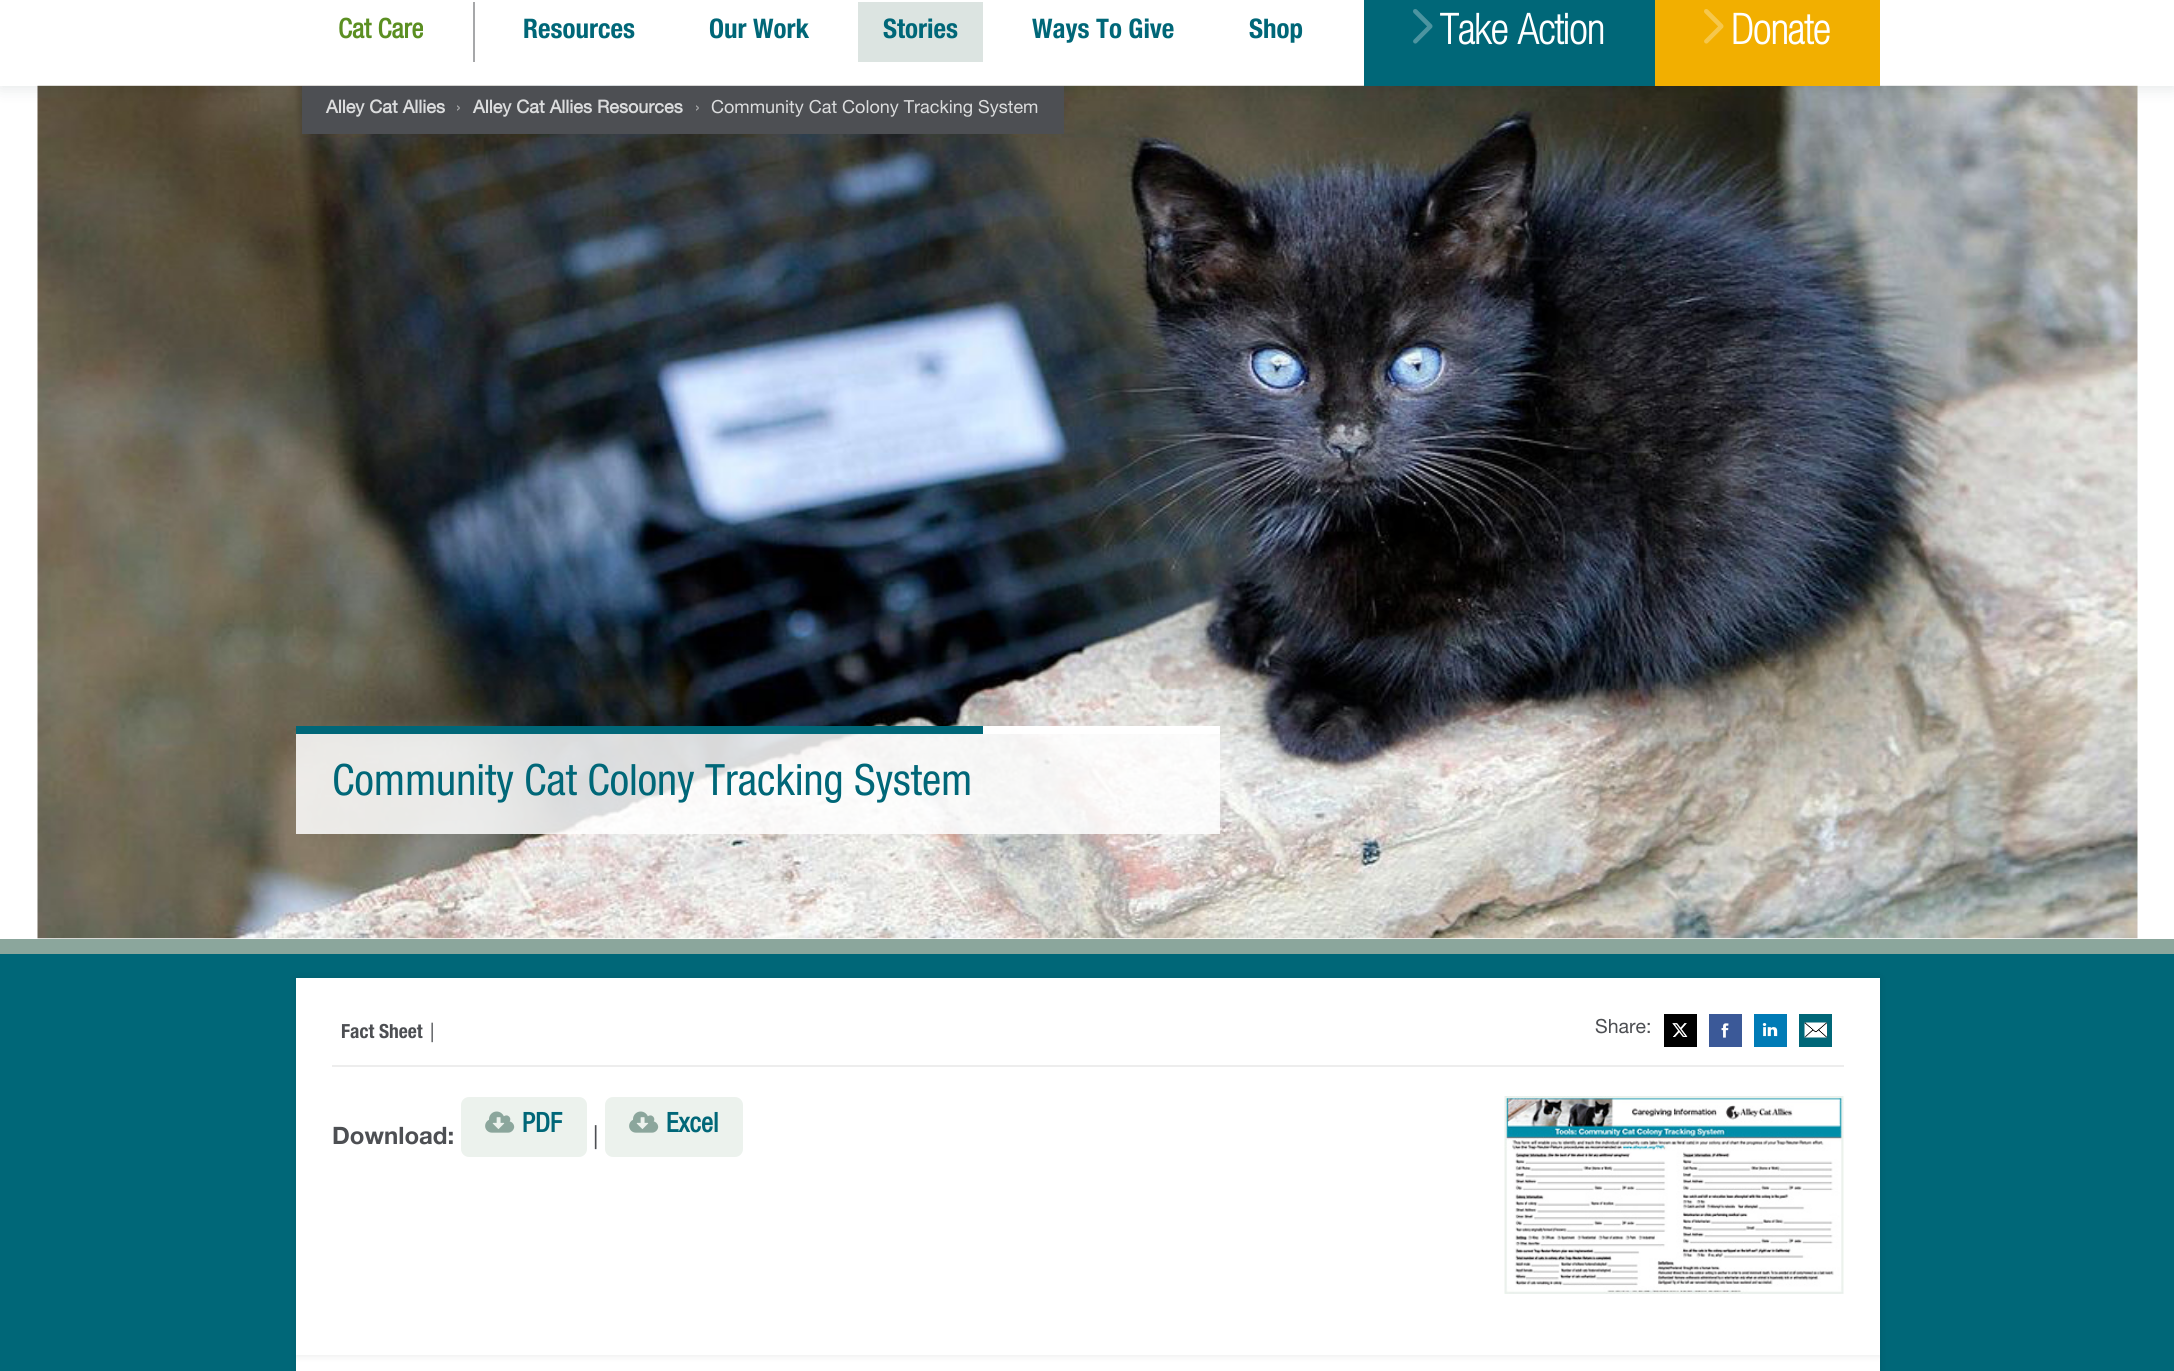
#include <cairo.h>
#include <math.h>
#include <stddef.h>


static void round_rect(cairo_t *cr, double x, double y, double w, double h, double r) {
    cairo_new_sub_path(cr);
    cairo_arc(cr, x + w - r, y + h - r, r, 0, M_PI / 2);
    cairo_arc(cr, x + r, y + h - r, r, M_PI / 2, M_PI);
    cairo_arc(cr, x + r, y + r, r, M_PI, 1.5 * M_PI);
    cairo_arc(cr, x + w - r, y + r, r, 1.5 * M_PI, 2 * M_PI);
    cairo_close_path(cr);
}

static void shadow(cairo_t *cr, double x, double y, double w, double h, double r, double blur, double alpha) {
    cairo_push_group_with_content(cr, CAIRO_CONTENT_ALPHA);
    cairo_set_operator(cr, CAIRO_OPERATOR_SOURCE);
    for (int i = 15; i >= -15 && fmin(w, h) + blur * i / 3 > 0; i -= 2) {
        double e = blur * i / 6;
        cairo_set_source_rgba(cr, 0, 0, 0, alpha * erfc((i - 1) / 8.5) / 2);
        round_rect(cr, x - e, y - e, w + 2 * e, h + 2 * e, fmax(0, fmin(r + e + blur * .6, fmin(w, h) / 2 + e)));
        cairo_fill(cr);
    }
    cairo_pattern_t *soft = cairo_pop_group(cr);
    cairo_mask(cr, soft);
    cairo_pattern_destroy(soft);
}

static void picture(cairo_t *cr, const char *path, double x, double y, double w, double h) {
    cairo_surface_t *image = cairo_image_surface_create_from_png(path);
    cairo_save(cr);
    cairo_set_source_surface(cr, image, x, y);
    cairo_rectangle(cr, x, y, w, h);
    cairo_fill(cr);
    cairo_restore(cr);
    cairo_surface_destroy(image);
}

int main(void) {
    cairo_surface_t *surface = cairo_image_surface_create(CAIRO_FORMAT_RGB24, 2174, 1371);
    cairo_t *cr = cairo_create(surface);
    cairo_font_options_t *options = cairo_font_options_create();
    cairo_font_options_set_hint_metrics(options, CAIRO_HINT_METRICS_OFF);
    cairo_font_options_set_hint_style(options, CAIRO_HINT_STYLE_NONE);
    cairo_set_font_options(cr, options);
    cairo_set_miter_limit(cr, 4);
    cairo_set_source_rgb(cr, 1, 1, 1);
    cairo_paint(cr);
    picture(cr, "img3.png", 37, 85, 2101, 854);
    cairo_save(cr);
    cairo_set_fill_rule(cr, CAIRO_FILL_RULE_EVEN_ODD);
    cairo_new_path(cr);
    cairo_move_to(cr, 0, 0);
    cairo_line_to(cr, 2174, 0);
    cairo_line_to(cr, 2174, 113);
    cairo_line_to(cr, 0, 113);
    cairo_close_path(cr);
    cairo_move_to(cr, 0, -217);
    cairo_line_to(cr, 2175, -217);
    cairo_line_to(cr, 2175, 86);
    cairo_line_to(cr, 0, 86);
    cairo_close_path(cr);
    cairo_clip(cr);
    cairo_set_source_rgb(cr, 0.02, 0.114, 0.129);
    shadow(cr, 0, -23, 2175, 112, 0, 7.5, 0.1);
    cairo_restore(cr);
    cairo_set_source_rgba(cr, 1, 1, 1, 0.8);
    cairo_rectangle(cr, 0, 85, 2174, 1);
    cairo_fill(cr);
    cairo_set_source_rgb(cr, 0.651, 0.655, 0.663);
    cairo_rectangle(cr, 473, 2, 2, 60);
    cairo_fill(cr);
    cairo_select_font_face(cr, "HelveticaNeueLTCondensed", CAIRO_FONT_SLANT_NORMAL, CAIRO_FONT_WEIGHT_BOLD);
    cairo_set_font_size(cr, 27);
    cairo_set_source_rgb(cr, 0.357, 0.561, 0.133);
    cairo_move_to(cr, 338, 38);
    cairo_show_text(cr, "Cat Care");
    cairo_select_font_face(cr, "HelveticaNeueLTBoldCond", CAIRO_FONT_SLANT_NORMAL, CAIRO_FONT_WEIGHT_BOLD);
    cairo_set_source_rgb(cr, 0, 0.404, 0.471);
    cairo_move_to(cr, 523, 38);
    cairo_show_text(cr, "Resources");
    cairo_move_to(cr, 709, 38);
    cairo_show_text(cr, "Our Work");
    cairo_set_source_rgb(cr, 0.863, 0.894, 0.882);
    cairo_rectangle(cr, 858, 2, 125, 60);
    cairo_fill(cr);
    cairo_set_source_rgb(cr, 0, 0.404, 0.471);
    cairo_move_to(cr, 883, 38);
    cairo_show_text(cr, "Stories");
    cairo_move_to(cr, 1032, 38);
    cairo_show_text(cr, "Ways To Give");
    cairo_move_to(cr, 1249, 38);
    cairo_show_text(cr, "Shop");
    cairo_rectangle(cr, 1364, 0, 291, 86);
    cairo_fill(cr);
    picture(cr, "img1.png", 1413, 9, 20, 35);
    cairo_select_font_face(cr, "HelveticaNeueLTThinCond", CAIRO_FONT_SLANT_NORMAL, CAIRO_FONT_WEIGHT_BOLD);
    cairo_set_font_size(cr, 42);
    cairo_set_source_rgb(cr, 1, 1, 1);
    cairo_move_to(cr, 1440, 44);
    cairo_show_text(cr, "Take Action");
    cairo_set_source_rgb(cr, 0.949, 0.686, 0);
    cairo_rectangle(cr, 1655, 0, 225, 86);
    cairo_fill(cr);
    picture(cr, "img2.png", 1704, 9, 20, 35);
    cairo_set_source_rgb(cr, 1, 1, 1);
    cairo_move_to(cr, 1731, 44);
    cairo_show_text(cr, "Donate");
    cairo_set_source_rgb(cr, 0.302, 0.31, 0.325);
    cairo_rectangle(cr, 302, 86, 762, 48);
    cairo_fill(cr);
    cairo_select_font_face(cr, "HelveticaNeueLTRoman", CAIRO_FONT_SLANT_NORMAL, CAIRO_FONT_WEIGHT_BOLD);
    cairo_set_font_size(cr, 18);
    cairo_set_source_rgb(cr, 0.859, 0.863, 0.867);
    cairo_move_to(cr, 326, 113);
    cairo_show_text(cr, "Alley Cat Allies");
    cairo_select_font_face(cr, "HelveticaNeueLTRoman", CAIRO_FONT_SLANT_NORMAL, CAIRO_FONT_WEIGHT_NORMAL);
    cairo_set_source_rgb(cr, 0.651, 0.655, 0.663);
    cairo_move_to(cr, 456, 113);
    cairo_show_text(cr, "›");
    cairo_select_font_face(cr, "HelveticaNeueLTRoman", CAIRO_FONT_SLANT_NORMAL, CAIRO_FONT_WEIGHT_BOLD);
    cairo_set_source_rgb(cr, 0.859, 0.863, 0.867);
    cairo_move_to(cr, 473, 113);
    cairo_show_text(cr, "Alley Cat Allies Resources");
    cairo_select_font_face(cr, "HelveticaNeueLTRoman", CAIRO_FONT_SLANT_NORMAL, CAIRO_FONT_WEIGHT_NORMAL);
    cairo_set_source_rgb(cr, 0.651, 0.655, 0.663);
    cairo_move_to(cr, 695, 113);
    cairo_show_text(cr, "›");
    cairo_set_source_rgb(cr, 0.859, 0.863, 0.867);
    cairo_move_to(cr, 711, 113);
    cairo_show_text(cr, "Community Cat Colony Tracking System");
    cairo_set_source_rgba(cr, 1, 1, 1, 0.85);
    cairo_rectangle(cr, 296, 726, 924, 108);
    cairo_fill(cr);
    cairo_set_source_rgba(cr, 1, 1, 1, 0.95);
    cairo_rectangle(cr, 983, 726, 237, 8);
    cairo_fill(cr);
    cairo_set_source_rgb(cr, 0, 0.404, 0.471);
    cairo_rectangle(cr, 296, 726, 687, 8);
    cairo_fill(cr);
    cairo_select_font_face(cr, "HelveticaNeueLTCondensed", CAIRO_FONT_SLANT_NORMAL, CAIRO_FONT_WEIGHT_NORMAL);
    cairo_set_font_size(cr, 43.25);
    cairo_move_to(cr, 332, 795);
    cairo_show_text(cr, "Community Cat Colony Tracking System");
    cairo_rectangle(cr, 0, 954, 2174, 417);
    cairo_fill(cr);
    cairo_set_source_rgb(cr, 0.545, 0.651, 0.612);
    cairo_rectangle(cr, 0, 939, 2174, 15);
    cairo_fill(cr);
    cairo_set_source_rgb(cr, 0, 0, 0);
    shadow(cr, 296, 978, 1584, 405, 0, 4, 0.1);
    cairo_set_source_rgb(cr, 1, 1, 1);
    cairo_rectangle(cr, 296, 1355, 1584, 16);
    cairo_fill(cr);
    cairo_save(cr);
    cairo_rectangle(cr, 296, 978, 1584, 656);
    cairo_clip(cr);
    cairo_set_source_rgb(cr, 0, 0, 0);
    shadow(cr, 296, 978, 1584, 377, 0, 4, 0.1);
    cairo_restore(cr);
    cairo_rectangle(cr, 296, 978, 1584, 377);
    cairo_fill(cr);
    cairo_set_source_rgb(cr, 0.929, 0.929, 0.929);
    cairo_rectangle(cr, 332, 1065, 1512, 2);
    cairo_fill(cr);
    cairo_select_font_face(cr, "HelveticaNeueLTBoldCond", CAIRO_FONT_SLANT_NORMAL, CAIRO_FONT_WEIGHT_BOLD);
    cairo_set_font_size(cr, 19.5);
    cairo_set_source_rgb(cr, 0.302, 0.31, 0.325);
    cairo_move_to(cr, 341, 1038);
    cairo_show_text(cr, "Fact Sheet");
    cairo_select_font_face(cr, "HelveticaNeueLTRoman", CAIRO_FONT_SLANT_NORMAL, CAIRO_FONT_WEIGHT_NORMAL);
    cairo_move_to(cr, 430, 1038);
    cairo_show_text(cr, "|");
    cairo_move_to(cr, 1595, 1033);
    cairo_show_text(cr, "Share:");
    cairo_set_source_rgb(cr, 0, 0, 0);
    cairo_rectangle(cr, 1664, 1014, 33, 33);
    cairo_fill(cr);
    picture(cr, "img4.png", 1672, 1023, 16, 14);
    cairo_set_source_rgb(cr, 0.231, 0.349, 0.596);
    cairo_rectangle(cr, 1709, 1014, 33, 33);
    cairo_fill(cr);
    picture(cr, "img5.png", 1721, 1023, 8, 15);
    cairo_set_source_rgb(cr, 0, 0.482, 0.714);
    cairo_rectangle(cr, 1754, 1014, 33, 33);
    cairo_fill(cr);
    picture(cr, "img6.png", 1762, 1023, 16, 14);
    cairo_set_source_rgb(cr, 0, 0.404, 0.471);
    cairo_rectangle(cr, 1799, 1014, 33, 33);
    cairo_fill(cr);
    picture(cr, "img7.png", 1804, 1022, 23, 16);
    cairo_set_source_rgb(cr, 0.922, 0.949, 0.929);
    round_rect(cr, 461, 1097, 126, 60, 8);
    cairo_fill(cr);
    picture(cr, "img8.png", 485, 1111, 30, 22);
    cairo_select_font_face(cr, "HelveticaNeueLTCondensed", CAIRO_FONT_SLANT_NORMAL, CAIRO_FONT_WEIGHT_BOLD);
    cairo_set_font_size(cr, 27);
    cairo_set_source_rgb(cr, 0, 0.404, 0.471);
    cairo_move_to(cr, 522, 1132);
    cairo_show_text(cr, "PDF");
    cairo_set_source_rgb(cr, 0.922, 0.949, 0.929);
    round_rect(cr, 605, 1097, 138, 60, 8);
    cairo_fill(cr);
    picture(cr, "img8.png", 629, 1111, 30, 22);
    cairo_set_source_rgb(cr, 0, 0.404, 0.471);
    cairo_move_to(cr, 666, 1132);
    cairo_show_text(cr, "Excel");
    cairo_select_font_face(cr, "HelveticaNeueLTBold", CAIRO_FONT_SLANT_NORMAL, CAIRO_FONT_WEIGHT_BOLD);
    cairo_set_font_size(cr, 24);
    cairo_set_source_rgb(cr, 0.302, 0.31, 0.325);
    cairo_move_to(cr, 332, 1144);
    cairo_show_text(cr, "Download:");
    cairo_select_font_face(cr, "HelveticaNeueLTRoman", CAIRO_FONT_SLANT_NORMAL, CAIRO_FONT_WEIGHT_NORMAL);
    cairo_move_to(cr, 593, 1144);
    cairo_show_text(cr, "|");
    picture(cr, "img9.png", 1504, 1096, 340, 198);
    cairo_surface_write_to_png(surface, "page.png");
    cairo_font_options_destroy(options);
    cairo_destroy(cr);
    cairo_surface_destroy(surface);
    return 0;
}
